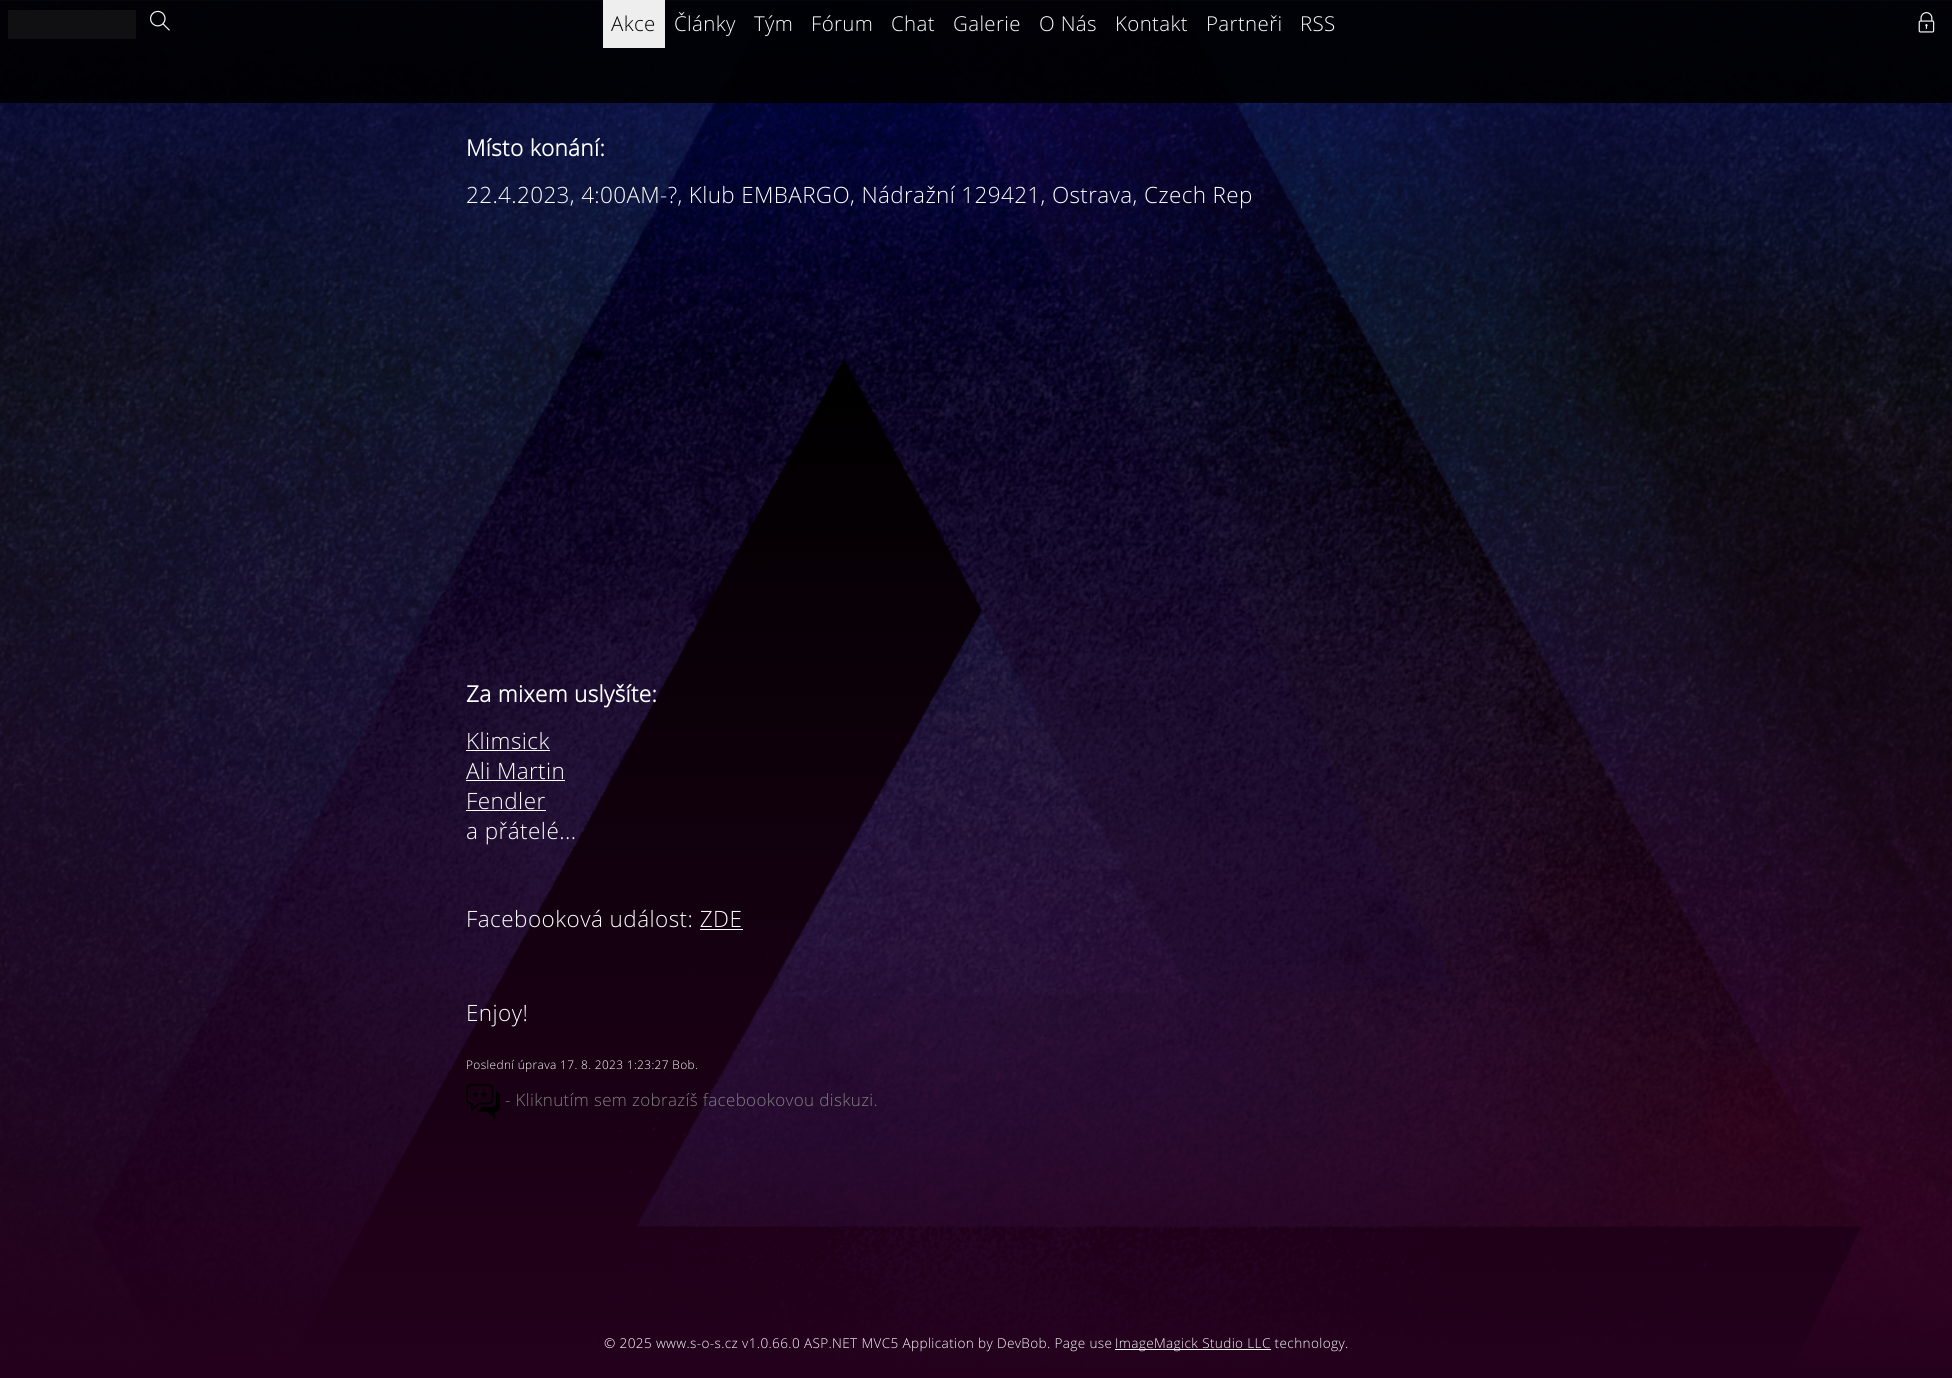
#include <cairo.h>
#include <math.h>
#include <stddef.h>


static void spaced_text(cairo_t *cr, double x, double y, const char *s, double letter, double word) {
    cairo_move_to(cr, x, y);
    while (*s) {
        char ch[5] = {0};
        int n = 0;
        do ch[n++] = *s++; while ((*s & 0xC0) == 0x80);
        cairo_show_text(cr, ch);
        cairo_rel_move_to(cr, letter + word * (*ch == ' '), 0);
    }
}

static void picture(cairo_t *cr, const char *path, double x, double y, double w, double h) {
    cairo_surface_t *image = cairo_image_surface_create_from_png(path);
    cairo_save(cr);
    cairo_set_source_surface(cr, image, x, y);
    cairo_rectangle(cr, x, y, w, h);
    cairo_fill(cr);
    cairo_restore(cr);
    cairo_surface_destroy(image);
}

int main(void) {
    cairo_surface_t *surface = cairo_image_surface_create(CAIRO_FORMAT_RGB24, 1952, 1378);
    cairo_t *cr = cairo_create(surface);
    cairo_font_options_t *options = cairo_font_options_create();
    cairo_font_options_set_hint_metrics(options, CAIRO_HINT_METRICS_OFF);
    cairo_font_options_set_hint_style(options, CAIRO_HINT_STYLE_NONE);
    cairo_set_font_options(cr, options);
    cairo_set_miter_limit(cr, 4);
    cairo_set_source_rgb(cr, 1, 1, 1);
    cairo_paint(cr);
    picture(cr, "img3.png", 0, 0, 1952, 1378);
    cairo_set_source_rgba(cr, 0, 0, 0, 0.9);
    cairo_rectangle(cr, 0, 0, 1952, 103);
    cairo_fill(cr);
    cairo_set_source_rgb(cr, 0.063, 0.063, 0.078);
    cairo_rectangle(cr, 8, 10, 128, 29);
    cairo_fill(cr);
    picture(cr, "img1.png", 150, 10, 20, 21);
    picture(cr, "img2.png", 1918, 12, 17, 21);
    cairo_set_source_rgb(cr, 0.937, 0.933, 0.937);
    cairo_rectangle(cr, 603, 0, 62, 48);
    cairo_fill(cr);
    cairo_select_font_face(cr, "Open Sans Light", CAIRO_FONT_SLANT_NORMAL, CAIRO_FONT_WEIGHT_NORMAL);
    cairo_set_font_size(cr, 20.5);
    cairo_set_source_rgb(cr, 0, 0, 0);
    spaced_text(cr, 611, 31, "Akce", 0.35, 0);
    cairo_set_source_rgb(cr, 1, 1, 1);
    spaced_text(cr, 674, 31, "Články", 0.35, 0);
    spaced_text(cr, 754, 31, "Tým", 0.35, 0);
    spaced_text(cr, 811, 31, "Fórum", 0.35, 0);
    spaced_text(cr, 891, 31, "Chat", 0.35, 0);
    spaced_text(cr, 953, 31, "Galerie", 0.35, 0);
    spaced_text(cr, 1039, 31, "O Nás", 0.35, 0);
    spaced_text(cr, 1115, 31, "Kontakt", 0.35, 0);
    spaced_text(cr, 1206, 31, "Partneři", 0.35, 0);
    spaced_text(cr, 1300, 31, "RSS", 0.35, 0);
    cairo_select_font_face(cr, "Open Sans", CAIRO_FONT_SLANT_NORMAL, CAIRO_FONT_WEIGHT_BOLD);
    cairo_set_font_size(cr, 22.5);
    spaced_text(cr, 466, 156, "Místo konání:", 0.35, 0);
    cairo_select_font_face(cr, "Open Sans Light", CAIRO_FONT_SLANT_NORMAL, CAIRO_FONT_WEIGHT_NORMAL);
    spaced_text(cr, 466, 203, "22.4.2023, 4:00AM-?, Klub EMBARGO, Nádražní 129421, Ostrava, Czech Rep", 0.35, 0);
    cairo_select_font_face(cr, "Open Sans", CAIRO_FONT_SLANT_NORMAL, CAIRO_FONT_WEIGHT_BOLD);
    spaced_text(cr, 466, 702, "Za mixem uslyšíte:", 0.35, 0);
    cairo_select_font_face(cr, "Open Sans Light", CAIRO_FONT_SLANT_NORMAL, CAIRO_FONT_WEIGHT_NORMAL);
    spaced_text(cr, 466, 749, "Klimsick", 0.45, 0);
    cairo_rectangle(cr, 466, 750, 84, 1);
    cairo_fill(cr);
    spaced_text(cr, 466, 779, "Ali Martin", 0.35, 0);
    cairo_rectangle(cr, 466, 780, 99, 1);
    cairo_fill(cr);
    spaced_text(cr, 466, 809, "Fendler", 0.45, 0);
    cairo_rectangle(cr, 466, 810, 80, 1);
    cairo_fill(cr);
    spaced_text(cr, 466, 839, "a přátelé...", 0.45, 0);
    spaced_text(cr, 466, 927, "Facebooková událost: ZDE", 0.45, 0);
    cairo_rectangle(cr, 700, 929, 43, 1);
    cairo_fill(cr);
    spaced_text(cr, 466, 1021, "Enjoy!", 0.45, 0);
    cairo_set_font_size(cr, 11.9);
    spaced_text(cr, 466, 1069, "Poslední úprava 17. 8. 2023 1:23:27 Bob.", 0.35, 0);
    picture(cr, "img4.png", 466, 1084, 34, 35);
    cairo_set_font_size(cr, 17);
    cairo_set_source_rgb(cr, 0.502, 0.502, 0.502);
    spaced_text(cr, 505, 1106, "- Kliknutím sem zobrazíš facebookovou diskuzi.", 0.35, 0);
    cairo_set_font_size(cr, 13.6);
    cairo_set_source_rgb(cr, 1, 1, 1);
    spaced_text(cr, 604, 1348, "© 2025 www.s-o-s.cz v1.0.66.0 ASP.NET MVC5 Application by DevBob. Page use", 0.35, 0);
    cairo_rectangle(cr, 1115, 1349, 156, 1);
    cairo_fill(cr);
    spaced_text(cr, 1115, 1348, "ImageMagick Studio LLC technology.", 0.35, 0);
    cairo_surface_write_to_png(surface, "page.png");
    cairo_font_options_destroy(options);
    cairo_destroy(cr);
    cairo_surface_destroy(surface);
    return 0;
}
